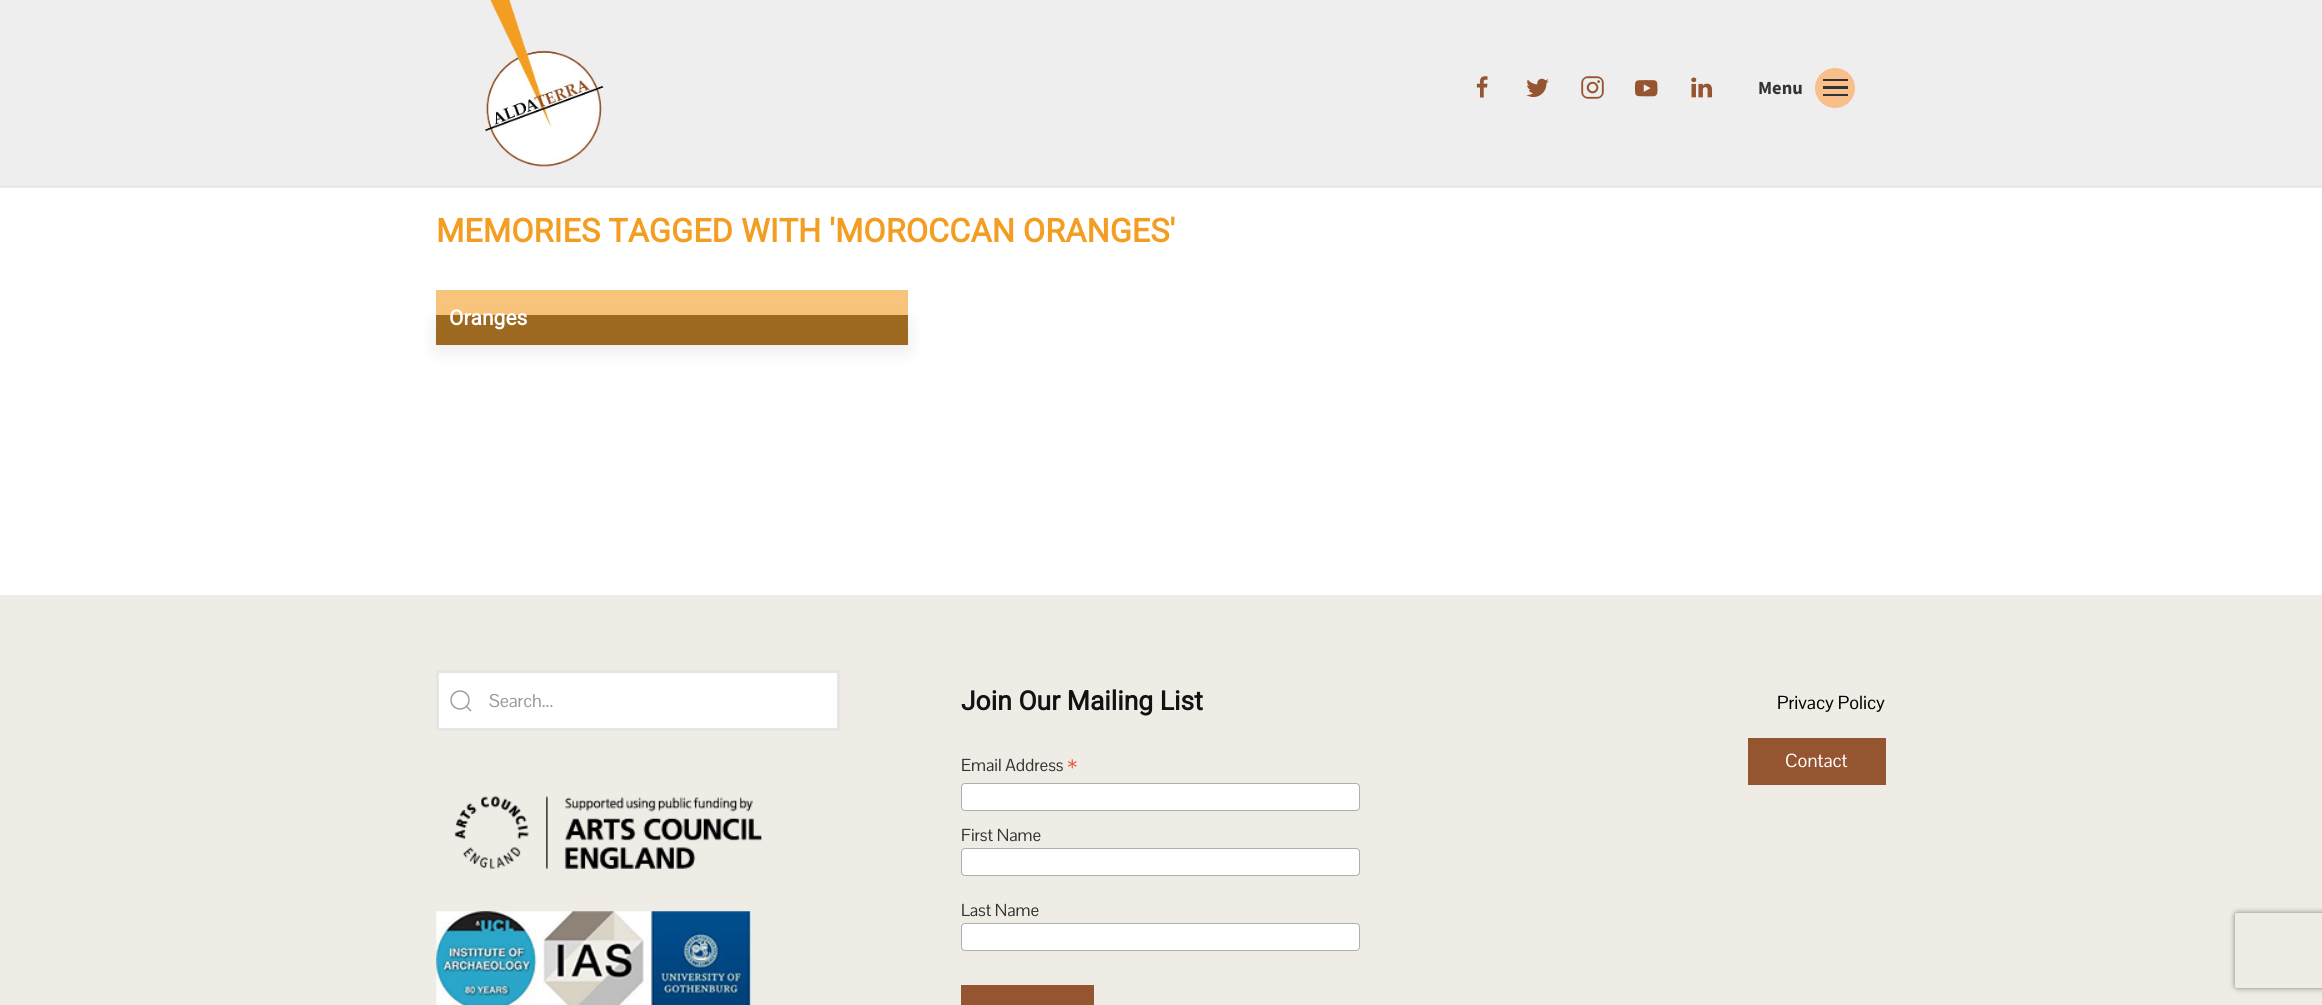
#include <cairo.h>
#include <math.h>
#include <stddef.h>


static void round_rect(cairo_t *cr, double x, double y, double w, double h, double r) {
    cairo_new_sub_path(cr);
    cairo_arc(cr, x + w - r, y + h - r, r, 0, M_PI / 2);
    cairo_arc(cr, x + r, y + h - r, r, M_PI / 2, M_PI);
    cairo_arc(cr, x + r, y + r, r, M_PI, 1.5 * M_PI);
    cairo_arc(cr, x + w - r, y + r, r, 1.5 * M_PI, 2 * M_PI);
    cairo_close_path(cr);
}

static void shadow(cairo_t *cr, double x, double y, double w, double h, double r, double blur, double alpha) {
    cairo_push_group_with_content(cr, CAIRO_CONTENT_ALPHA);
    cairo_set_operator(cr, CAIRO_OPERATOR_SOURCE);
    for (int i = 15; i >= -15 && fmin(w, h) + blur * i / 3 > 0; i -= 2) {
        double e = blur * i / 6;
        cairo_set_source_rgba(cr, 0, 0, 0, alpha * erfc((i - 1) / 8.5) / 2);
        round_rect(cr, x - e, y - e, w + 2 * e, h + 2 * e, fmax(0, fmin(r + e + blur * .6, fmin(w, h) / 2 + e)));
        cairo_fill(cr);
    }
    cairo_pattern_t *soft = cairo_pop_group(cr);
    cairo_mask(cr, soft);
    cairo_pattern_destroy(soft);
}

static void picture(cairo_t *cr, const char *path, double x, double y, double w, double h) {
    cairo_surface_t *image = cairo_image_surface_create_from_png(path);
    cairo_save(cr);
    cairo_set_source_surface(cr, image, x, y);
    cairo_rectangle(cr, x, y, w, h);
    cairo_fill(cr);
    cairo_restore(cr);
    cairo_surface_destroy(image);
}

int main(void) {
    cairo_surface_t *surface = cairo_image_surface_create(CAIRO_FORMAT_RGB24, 2322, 1005);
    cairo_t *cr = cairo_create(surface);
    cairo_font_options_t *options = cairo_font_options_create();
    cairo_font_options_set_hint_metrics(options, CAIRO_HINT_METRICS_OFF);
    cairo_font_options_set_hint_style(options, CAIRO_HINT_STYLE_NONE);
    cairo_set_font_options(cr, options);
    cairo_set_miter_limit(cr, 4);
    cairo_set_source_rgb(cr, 1, 1, 1);
    cairo_paint(cr);
    cairo_set_source_rgb(cr, 0.933, 0.933, 0.933);
    cairo_rectangle(cr, 0, 0, 2322, 188);
    cairo_fill(cr);
    cairo_set_source_rgb(cr, 0.898, 0.898, 0.898);
    cairo_rectangle(cr, 0, 186, 2322, 1);
    cairo_fill(cr);
    picture(cr, "img1.png", 485, 0, 119, 167);
    picture(cr, "img2.png", 1476, 76, 12, 22);
    picture(cr, "img3.png", 1526, 78, 23, 19);
    picture(cr, "img4.png", 1581, 76, 23, 23);
    picture(cr, "img5.png", 1635, 80, 23, 17);
    picture(cr, "img6.png", 1691, 77, 22, 21);
    cairo_select_font_face(cr, "Source Sans Pro", CAIRO_FONT_SLANT_NORMAL, CAIRO_FONT_WEIGHT_BOLD);
    cairo_set_font_size(cr, 18.5);
    cairo_set_source_rgb(cr, 0.2, 0.2, 0.2);
    cairo_move_to(cr, 1758, 94);
    cairo_show_text(cr, "Menu");
    cairo_set_source_rgb(cr, 0.973, 0.749, 0.541);
    cairo_new_path(cr);
    cairo_arc(cr, 1835, 88, 20, 0, 2 * M_PI);
    cairo_fill(cr);
    cairo_set_source_rgb(cr, 0.2, 0.2, 0.2);
    cairo_rectangle(cr, 1823, 79, 25, 2);
    cairo_fill(cr);
    cairo_rectangle(cr, 1823, 86, 25, 3);
    cairo_fill(cr);
    cairo_rectangle(cr, 1823, 94, 25, 2);
    cairo_fill(cr);
    cairo_select_font_face(cr, "Roboto", CAIRO_FONT_SLANT_NORMAL, CAIRO_FONT_WEIGHT_BOLD);
    cairo_set_font_size(cr, 32.5);
    cairo_set_source_rgb(cr, 0.953, 0.616, 0.133);
    cairo_move_to(cr, 436, 242);
    cairo_show_text(cr, "MEMORIES TAGGED WITH 'MOROCCAN ORANGES'");
    cairo_set_source_rgb(cr, 0, 0, 0);
    shadow(cr, 436, 321, 472, 30, 0, 9.5, 0.08);
    cairo_set_source_rgb(cr, 0.106, 0.106, 0.106);
    cairo_rectangle(cr, 436, 315, 472, 30);
    cairo_fill(cr);
    cairo_set_source_rgba(cr, 0.953, 0.616, 0.141, 0.6);
    cairo_rectangle(cr, 436, 290, 472, 55);
    cairo_fill(cr);
    cairo_set_font_size(cr, 21);
    cairo_set_source_rgb(cr, 1, 1, 1);
    cairo_move_to(cr, 449, 325);
    cairo_show_text(cr, "Oranges");
    cairo_set_source_rgb(cr, 0.937, 0.925, 0.902);
    cairo_rectangle(cr, 0, 595, 2322, 410);
    cairo_fill(cr);
    cairo_set_source_rgb(cr, 1, 1, 1);
    cairo_rectangle(cr, 437.5, 671.5, 401, 58);
    cairo_fill_preserve(cr);
    cairo_set_source_rgb(cr, 0.898, 0.898, 0.898);
    cairo_set_line_width(cr, 3);
    cairo_stroke(cr);
    cairo_arc(cr, 460, 700, 9, 0, 2 * M_PI);
    cairo_set_source_rgb(cr, 0.6, 0.6, 0.6);
    cairo_set_line_width(cr, 1.4);
    cairo_stroke(cr);
    cairo_new_path(cr);
    cairo_move_to(cr, 466, 706);
    cairo_line_to(cr, 471, 711);
    cairo_close_path(cr);
    cairo_stroke(cr);
    cairo_select_font_face(cr, "Pontano Sans", CAIRO_FONT_SLANT_NORMAL, CAIRO_FONT_WEIGHT_NORMAL);
    cairo_set_font_size(cr, 18);
    cairo_move_to(cr, 489, 707);
    cairo_show_text(cr, "Search...");
    picture(cr, "img7.png", 454, 796, 308, 73);
    picture(cr, "img8.png", 436, 911, 316, 94);
    cairo_select_font_face(cr, "Roboto", CAIRO_FONT_SLANT_NORMAL, CAIRO_FONT_WEIGHT_BOLD);
    cairo_set_font_size(cr, 26.5);
    cairo_set_source_rgb(cr, 0.071, 0.071, 0.071);
    cairo_move_to(cr, 961, 710);
    cairo_show_text(cr, "Join Our Mailing List");
    cairo_select_font_face(cr, "Pontano Sans", CAIRO_FONT_SLANT_NORMAL, CAIRO_FONT_WEIGHT_NORMAL);
    cairo_set_font_size(cr, 17);
    cairo_set_source_rgb(cr, 0.2, 0.2, 0.2);
    cairo_move_to(cr, 961, 771);
    cairo_show_text(cr, "Email Address");
    cairo_set_font_size(cr, 26);
    cairo_set_source_rgb(cr, 0.91, 0.361, 0.255);
    cairo_move_to(cr, 1067, 778);
    cairo_show_text(cr, "*");
    cairo_set_source_rgb(cr, 1, 1, 1);
    round_rect(cr, 961.5, 783.5, 398, 27, 3.5);
    cairo_fill_preserve(cr);
    cairo_set_source_rgb(cr, 0.671, 0.69, 0.698);
    cairo_set_line_width(cr, 1);
    cairo_stroke(cr);
    cairo_set_font_size(cr, 17);
    cairo_set_source_rgb(cr, 0.2, 0.2, 0.2);
    cairo_move_to(cr, 961, 841);
    cairo_show_text(cr, "First Name");
    cairo_set_source_rgb(cr, 1, 1, 1);
    round_rect(cr, 961.5, 848.5, 398, 27, 3.5);
    cairo_fill_preserve(cr);
    cairo_set_source_rgb(cr, 0.671, 0.69, 0.698);
    cairo_stroke(cr);
    cairo_set_source_rgb(cr, 0.2, 0.2, 0.2);
    cairo_move_to(cr, 961, 916);
    cairo_show_text(cr, "Last Name");
    cairo_set_source_rgb(cr, 1, 1, 1);
    round_rect(cr, 961.5, 923.5, 398, 27, 3.5);
    cairo_fill_preserve(cr);
    cairo_set_source_rgb(cr, 0.671, 0.69, 0.698);
    cairo_stroke(cr);
    cairo_set_source_rgb(cr, 0.584, 0.333, 0.192);
    cairo_rectangle(cr, 961, 985, 133, 20);
    cairo_fill(cr);
    cairo_set_font_size(cr, 18.5);
    cairo_set_source_rgb(cr, 0, 0, 0);
    cairo_move_to(cr, 1777, 709);
    cairo_show_text(cr, "Privacy Policy");
    cairo_set_source_rgb(cr, 0.584, 0.333, 0.192);
    cairo_rectangle(cr, 1748, 738, 138, 47);
    cairo_fill(cr);
    cairo_set_source_rgb(cr, 1, 1, 1);
    cairo_move_to(cr, 1785, 767);
    cairo_show_text(cr, "Contact");
    cairo_save(cr);
    cairo_set_fill_rule(cr, CAIRO_FILL_RULE_EVEN_ODD);
    cairo_new_path(cr);
    cairo_move_to(cr, 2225, 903);
    cairo_line_to(cr, 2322, 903);
    cairo_line_to(cr, 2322, 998);
    cairo_line_to(cr, 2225, 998);
    cairo_close_path(cr);
    cairo_move_to(cr, 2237.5, 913);
    cairo_line_to(cr, 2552.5, 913);
    cairo_curve_to(cr, 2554, 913, 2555, 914, 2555, 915.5);
    cairo_line_to(cr, 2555, 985.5);
    cairo_curve_to(cr, 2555, 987, 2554, 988, 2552.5, 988);
    cairo_line_to(cr, 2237.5, 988);
    cairo_curve_to(cr, 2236, 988, 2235, 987, 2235, 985.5);
    cairo_line_to(cr, 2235, 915.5);
    cairo_curve_to(cr, 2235, 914, 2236, 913, 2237.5, 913);
    cairo_close_path(cr);
    cairo_clip(cr);
    cairo_set_source_rgb(cr, 0.502, 0.502, 0.502);
    shadow(cr, 2235, 913, 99, 75, 2.5, 3, 1);
    cairo_restore(cr);
    cairo_surface_write_to_png(surface, "page.png");
    cairo_font_options_destroy(options);
    cairo_destroy(cr);
    cairo_surface_destroy(surface);
    return 0;
}
